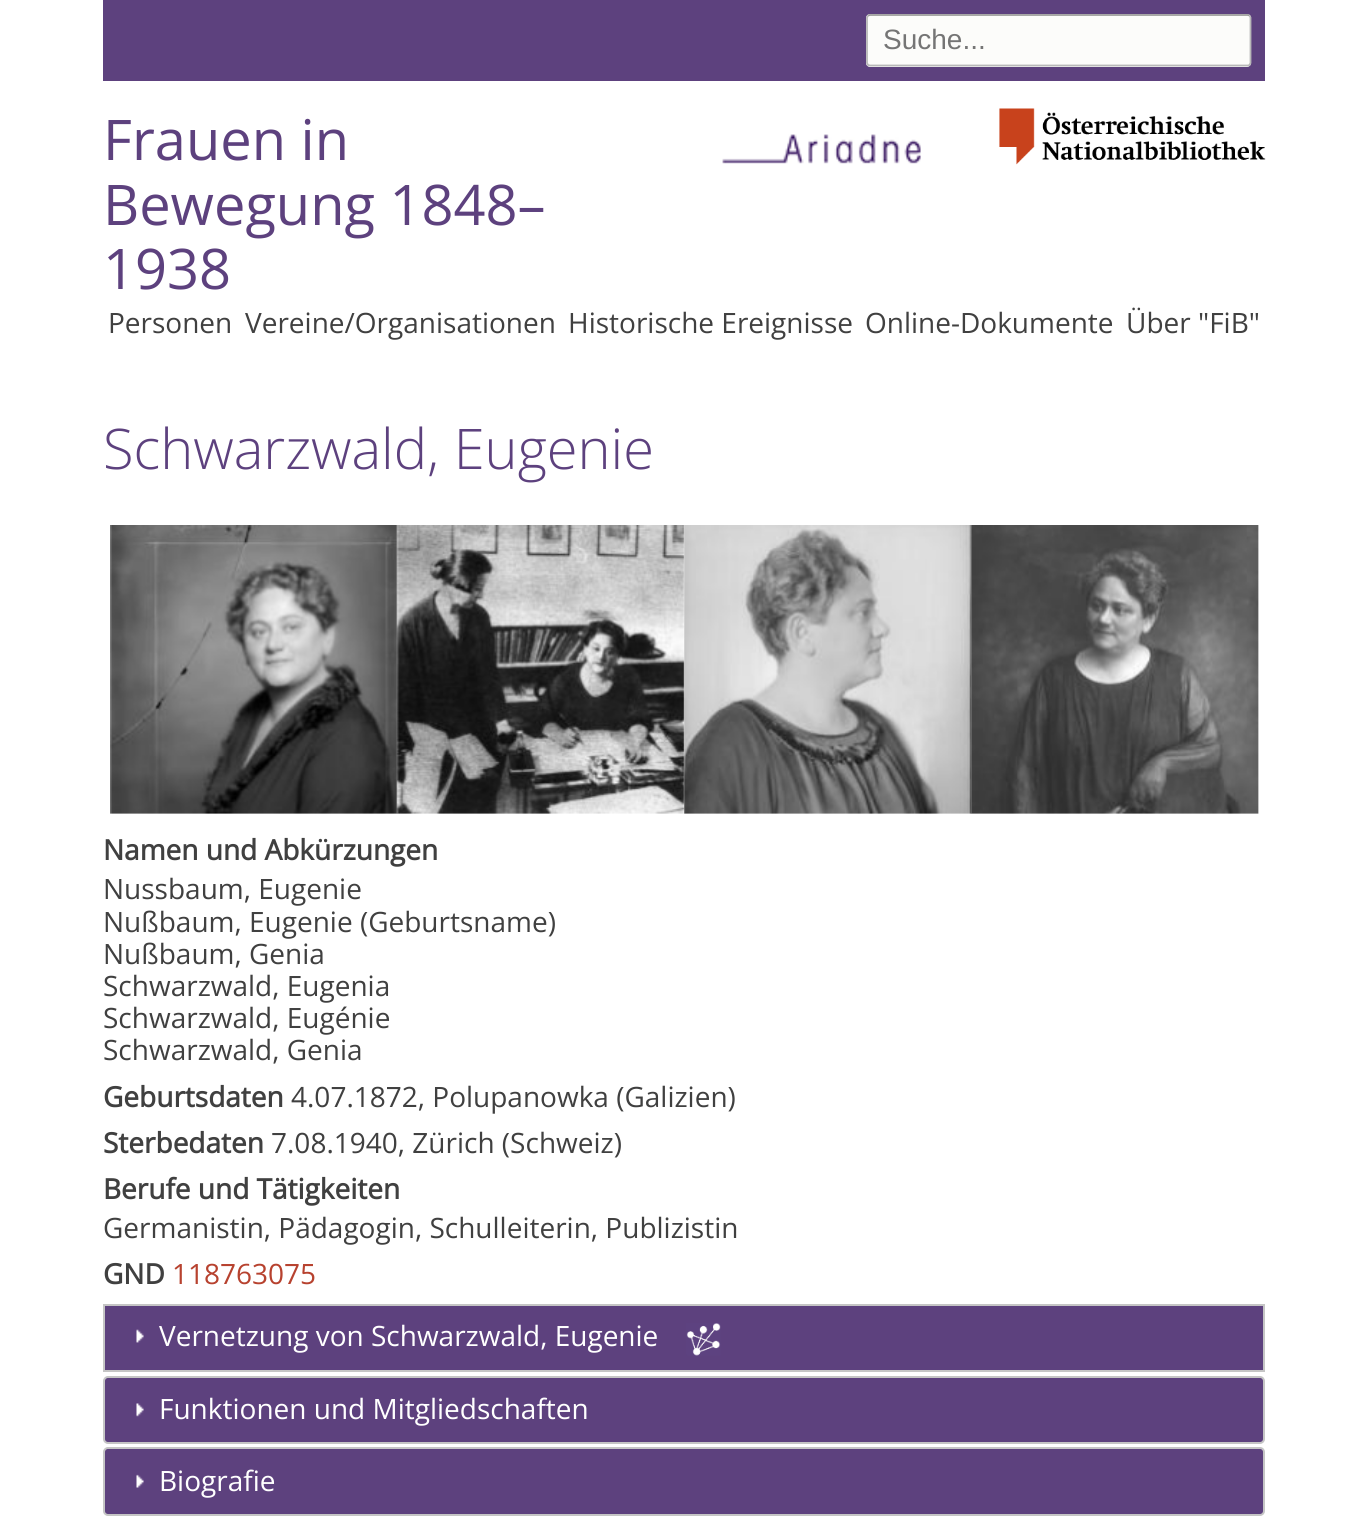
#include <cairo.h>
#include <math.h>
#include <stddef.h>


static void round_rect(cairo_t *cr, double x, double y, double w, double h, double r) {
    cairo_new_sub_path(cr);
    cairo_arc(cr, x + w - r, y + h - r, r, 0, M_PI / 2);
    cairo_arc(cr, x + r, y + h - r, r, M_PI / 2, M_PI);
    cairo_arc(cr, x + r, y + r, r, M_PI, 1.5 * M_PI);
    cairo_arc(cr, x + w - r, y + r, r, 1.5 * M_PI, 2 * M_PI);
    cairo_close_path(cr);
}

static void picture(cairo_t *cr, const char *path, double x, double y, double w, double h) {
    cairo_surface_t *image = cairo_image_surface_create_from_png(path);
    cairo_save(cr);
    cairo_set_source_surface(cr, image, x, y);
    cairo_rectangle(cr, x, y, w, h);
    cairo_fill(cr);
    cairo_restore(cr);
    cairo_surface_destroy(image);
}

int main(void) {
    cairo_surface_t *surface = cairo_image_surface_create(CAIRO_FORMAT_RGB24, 1367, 1519);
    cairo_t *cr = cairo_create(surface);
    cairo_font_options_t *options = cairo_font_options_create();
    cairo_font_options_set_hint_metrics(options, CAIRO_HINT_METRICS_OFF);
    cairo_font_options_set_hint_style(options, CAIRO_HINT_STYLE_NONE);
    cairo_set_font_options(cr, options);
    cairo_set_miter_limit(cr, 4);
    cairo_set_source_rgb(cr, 1, 1, 1);
    cairo_paint(cr);
    cairo_set_source_rgb(cr, 0.365, 0.255, 0.494);
    cairo_rectangle(cr, 103, 0, 1162, 81);
    cairo_fill(cr);
    cairo_set_source_rgb(cr, 0.988, 0.988, 0.98);
    round_rect(cr, 866, 14, 385, 53, 4);
    cairo_fill(cr);
    cairo_new_path(cr);
    cairo_move_to(cr, 868, 15.5);
    cairo_line_to(cr, 870, 15);
    cairo_line_to(cr, 1248, 15);
    cairo_line_to(cr, 1249.5, 15.5);
    cairo_set_source_rgb(cr, 0.6, 0.6, 0.6);
    cairo_set_line_width(cr, 1.8);
    cairo_stroke(cr);
    cairo_new_path(cr);
    cairo_move_to(cr, 1249.5, 15.5);
    cairo_line_to(cr, 1250.5, 17.5);
    cairo_line_to(cr, 1250.5, 63);
    cairo_line_to(cr, 1249.5, 65);
    cairo_line_to(cr, 1248, 65.5);
    cairo_line_to(cr, 870, 65.5);
    cairo_line_to(cr, 868, 65);
    cairo_line_to(cr, 867, 63);
    cairo_line_to(cr, 867, 17.5);
    cairo_line_to(cr, 868, 15.5);
    cairo_set_source_rgb(cr, 0.722, 0.722, 0.722);
    cairo_stroke(cr);
    cairo_select_font_face(cr, "Liberation Sans", CAIRO_FONT_SLANT_NORMAL, CAIRO_FONT_WEIGHT_NORMAL);
    cairo_set_font_size(cr, 28);
    cairo_set_source_rgb(cr, 0.459, 0.459, 0.459);
    cairo_move_to(cr, 883, 49);
    cairo_show_text(cr, "Suche...");
    cairo_select_font_face(cr, "Open Sans", CAIRO_FONT_SLANT_NORMAL, CAIRO_FONT_WEIGHT_NORMAL);
    cairo_set_font_size(cr, 56);
    cairo_set_source_rgb(cr, 0.365, 0.255, 0.494);
    cairo_move_to(cr, 103, 160);
    cairo_show_text(cr, "Frauen in");
    cairo_move_to(cr, 103, 225);
    cairo_show_text(cr, "Bewegung 1848–");
    cairo_move_to(cr, 103, 289);
    cairo_show_text(cr, "1938");
    picture(cr, "img1.png", 722, 134, 199, 30);
    picture(cr, "img2.png", 999, 108, 267, 57);
    cairo_set_font_size(cr, 28);
    cairo_set_source_rgb(cr, 0.251, 0.251, 0.251);
    cairo_move_to(cr, 108, 333);
    cairo_show_text(cr, "Personen");
    cairo_move_to(cr, 245, 333);
    cairo_show_text(cr, "Vereine/Organisationen");
    cairo_move_to(cr, 568, 333);
    cairo_show_text(cr, "Historische Ereignisse");
    cairo_move_to(cr, 865, 333);
    cairo_show_text(cr, "Online-Dokumente");
    cairo_move_to(cr, 1126, 333);
    cairo_show_text(cr, "Über \"FiB\"");
    cairo_select_font_face(cr, "Open Sans Light", CAIRO_FONT_SLANT_NORMAL, CAIRO_FONT_WEIGHT_NORMAL);
    cairo_set_font_size(cr, 56);
    cairo_set_source_rgb(cr, 0.365, 0.255, 0.494);
    cairo_move_to(cr, 103, 469);
    cairo_show_text(cr, "Schwarzwald, Eugenie");
    picture(cr, "img3.png", 110, 525, 288, 289);
    picture(cr, "img4.png", 396, 525, 289, 289);
    picture(cr, "img5.png", 684, 525, 288, 289);
    picture(cr, "img6.png", 971, 525, 288, 289);
    cairo_select_font_face(cr, "Open Sans", CAIRO_FONT_SLANT_NORMAL, CAIRO_FONT_WEIGHT_BOLD);
    cairo_set_font_size(cr, 28);
    cairo_set_source_rgb(cr, 0.251, 0.251, 0.251);
    cairo_move_to(cr, 103, 860);
    cairo_show_text(cr, "Namen und Abkürzungen");
    cairo_select_font_face(cr, "Open Sans", CAIRO_FONT_SLANT_NORMAL, CAIRO_FONT_WEIGHT_NORMAL);
    cairo_move_to(cr, 103, 899);
    cairo_show_text(cr, "Nussbaum, Eugenie");
    cairo_move_to(cr, 103, 932);
    cairo_show_text(cr, "Nußbaum, Eugenie (Geburtsname)");
    cairo_move_to(cr, 103, 964);
    cairo_show_text(cr, "Nußbaum, Genia");
    cairo_move_to(cr, 103, 996);
    cairo_show_text(cr, "Schwarzwald, Eugenia");
    cairo_move_to(cr, 103, 1028);
    cairo_show_text(cr, "Schwarzwald, Eugénie");
    cairo_move_to(cr, 103, 1060);
    cairo_show_text(cr, "Schwarzwald, Genia");
    cairo_select_font_face(cr, "Open Sans", CAIRO_FONT_SLANT_NORMAL, CAIRO_FONT_WEIGHT_BOLD);
    cairo_move_to(cr, 103, 1107);
    cairo_show_text(cr, "Geburtsdaten");
    cairo_select_font_face(cr, "Open Sans", CAIRO_FONT_SLANT_NORMAL, CAIRO_FONT_WEIGHT_NORMAL);
    cairo_move_to(cr, 291, 1107);
    cairo_show_text(cr, "4.07.1872, Polupanowka (Galizien)");
    cairo_select_font_face(cr, "Open Sans", CAIRO_FONT_SLANT_NORMAL, CAIRO_FONT_WEIGHT_BOLD);
    cairo_move_to(cr, 103, 1153);
    cairo_show_text(cr, "Sterbedaten");
    cairo_select_font_face(cr, "Open Sans", CAIRO_FONT_SLANT_NORMAL, CAIRO_FONT_WEIGHT_NORMAL);
    cairo_move_to(cr, 271, 1153);
    cairo_show_text(cr, "7.08.1940, Zürich (Schweiz)");
    cairo_select_font_face(cr, "Open Sans", CAIRO_FONT_SLANT_NORMAL, CAIRO_FONT_WEIGHT_BOLD);
    cairo_move_to(cr, 103, 1199);
    cairo_show_text(cr, "Berufe und Tätigkeiten");
    cairo_select_font_face(cr, "Open Sans", CAIRO_FONT_SLANT_NORMAL, CAIRO_FONT_WEIGHT_NORMAL);
    cairo_move_to(cr, 103, 1238);
    cairo_show_text(cr, "Germanistin, Pädagogin, Schulleiterin, Publizistin");
    cairo_select_font_face(cr, "Open Sans", CAIRO_FONT_SLANT_NORMAL, CAIRO_FONT_WEIGHT_BOLD);
    cairo_move_to(cr, 103, 1284);
    cairo_show_text(cr, "GND");
    cairo_select_font_face(cr, "Open Sans", CAIRO_FONT_SLANT_NORMAL, CAIRO_FONT_WEIGHT_NORMAL);
    cairo_set_source_rgb(cr, 0.718, 0.259, 0.184);
    cairo_move_to(cr, 172, 1284);
    cairo_show_text(cr, "118763075");
    cairo_set_source_rgb(cr, 0.365, 0.255, 0.494);
    cairo_rectangle(cr, 104, 1305, 1160, 66);
    cairo_fill_preserve(cr);
    cairo_set_source_rgb(cr, 0.773, 0.773, 0.773);
    cairo_set_line_width(cr, 2);
    cairo_stroke(cr);
    picture(cr, "img7.png", 136, 1329, 8, 14);
    cairo_set_source_rgb(cr, 1, 1, 1);
    cairo_move_to(cr, 159, 1346);
    cairo_show_text(cr, "Vernetzung von Schwarzwald, Eugenie");
    picture(cr, "img8.png", 686, 1323, 35, 33);
    cairo_set_source_rgb(cr, 0.365, 0.255, 0.494);
    round_rect(cr, 104, 1377, 1160, 66, 4);
    cairo_fill_preserve(cr);
    cairo_set_source_rgb(cr, 0.773, 0.773, 0.773);
    cairo_stroke(cr);
    picture(cr, "img9.png", 136, 1403, 8, 14);
    cairo_set_source_rgb(cr, 1, 1, 1);
    cairo_move_to(cr, 159, 1419);
    cairo_show_text(cr, "Funktionen und Mitgliedschaften");
    cairo_set_source_rgb(cr, 0.365, 0.255, 0.494);
    round_rect(cr, 104, 1448, 1160, 67, 4);
    cairo_fill_preserve(cr);
    cairo_set_source_rgb(cr, 0.773, 0.773, 0.773);
    cairo_stroke(cr);
    picture(cr, "img10.png", 136, 1474, 8, 14);
    cairo_set_source_rgb(cr, 1, 1, 1);
    cairo_move_to(cr, 159, 1491);
    cairo_show_text(cr, "Biografie");
    cairo_surface_write_to_png(surface, "page.png");
    cairo_font_options_destroy(options);
    cairo_destroy(cr);
    cairo_surface_destroy(surface);
    return 0;
}
